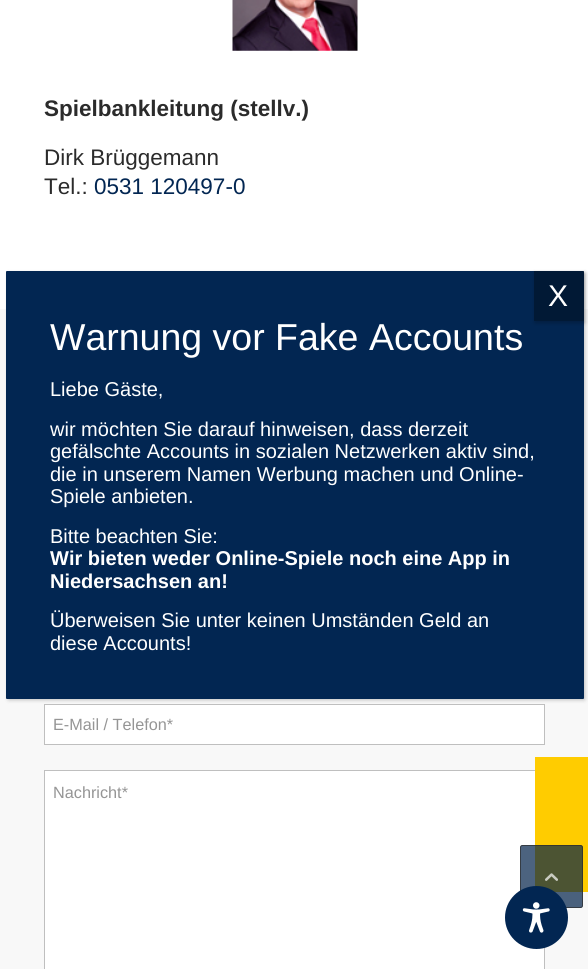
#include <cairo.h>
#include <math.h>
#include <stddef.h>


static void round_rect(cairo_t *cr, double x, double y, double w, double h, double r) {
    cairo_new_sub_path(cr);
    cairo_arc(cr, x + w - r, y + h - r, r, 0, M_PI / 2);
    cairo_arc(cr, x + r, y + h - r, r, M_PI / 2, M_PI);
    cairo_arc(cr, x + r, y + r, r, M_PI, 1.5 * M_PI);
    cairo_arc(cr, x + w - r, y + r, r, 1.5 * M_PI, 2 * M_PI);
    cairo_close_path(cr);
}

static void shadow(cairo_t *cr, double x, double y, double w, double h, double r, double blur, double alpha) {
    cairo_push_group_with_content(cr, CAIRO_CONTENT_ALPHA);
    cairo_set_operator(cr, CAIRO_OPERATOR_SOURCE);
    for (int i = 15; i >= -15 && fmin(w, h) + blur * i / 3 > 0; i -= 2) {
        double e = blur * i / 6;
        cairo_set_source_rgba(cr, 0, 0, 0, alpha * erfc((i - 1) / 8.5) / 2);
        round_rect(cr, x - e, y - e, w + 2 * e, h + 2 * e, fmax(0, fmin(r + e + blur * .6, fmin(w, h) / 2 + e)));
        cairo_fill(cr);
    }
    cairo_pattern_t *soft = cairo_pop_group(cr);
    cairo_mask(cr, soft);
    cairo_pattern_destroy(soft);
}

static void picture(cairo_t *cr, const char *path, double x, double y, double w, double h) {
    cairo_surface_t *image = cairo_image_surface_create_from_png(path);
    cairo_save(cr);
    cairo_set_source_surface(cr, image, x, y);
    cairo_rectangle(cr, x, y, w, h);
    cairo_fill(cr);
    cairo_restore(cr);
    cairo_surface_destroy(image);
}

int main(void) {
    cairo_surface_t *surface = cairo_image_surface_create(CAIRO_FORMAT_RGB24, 588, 969);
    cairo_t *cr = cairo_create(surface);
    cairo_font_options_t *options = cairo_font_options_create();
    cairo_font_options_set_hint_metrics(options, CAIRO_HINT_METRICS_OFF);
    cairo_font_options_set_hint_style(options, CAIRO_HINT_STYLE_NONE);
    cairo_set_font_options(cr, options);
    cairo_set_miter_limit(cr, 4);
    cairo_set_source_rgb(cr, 1, 1, 1);
    cairo_paint(cr);
    picture(cr, "img1.png", 232, 0, 126, 51);
    cairo_select_font_face(cr, "Liberation Sans", CAIRO_FONT_SLANT_NORMAL, CAIRO_FONT_WEIGHT_BOLD);
    cairo_set_font_size(cr, 22.5);
    cairo_set_source_rgb(cr, 0.169, 0.169, 0.169);
    cairo_move_to(cr, 44, 116);
    cairo_show_text(cr, "Spielbankleitung (stellv.)");
    cairo_select_font_face(cr, "Liberation Sans", CAIRO_FONT_SLANT_NORMAL, CAIRO_FONT_WEIGHT_NORMAL);
    cairo_move_to(cr, 44, 165);
    cairo_show_text(cr, "Dirk Brüggemann");
    cairo_move_to(cr, 44, 194);
    cairo_show_text(cr, "Tel.:");
    cairo_set_source_rgb(cr, 0.008, 0.149, 0.322);
    cairo_move_to(cr, 94, 194);
    cairo_show_text(cr, "0531 120497-0");
    cairo_set_source_rgb(cr, 0.969, 0.969, 0.969);
    cairo_rectangle(cr, 0, 309, 588, 660);
    cairo_fill(cr);
    cairo_set_source_rgb(cr, 1, 1, 1);
    cairo_rectangle(cr, 44.5, 704.5, 500, 40);
    cairo_fill_preserve(cr);
    cairo_set_source_rgb(cr, 0.749, 0.749, 0.749);
    cairo_set_line_width(cr, 1);
    cairo_stroke(cr);
    cairo_set_font_size(cr, 16.25);
    cairo_set_source_rgb(cr, 0.584, 0.584, 0.584);
    cairo_move_to(cr, 53, 730);
    cairo_show_text(cr, "E-Mail / Telefon*");
    cairo_set_source_rgb(cr, 1, 1, 1);
    cairo_rectangle(cr, 44.5, 770.5, 500, 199);
    cairo_fill_preserve(cr);
    cairo_set_source_rgb(cr, 0.749, 0.749, 0.749);
    cairo_stroke(cr);
    cairo_set_source_rgb(cr, 0.584, 0.584, 0.584);
    cairo_move_to(cr, 53, 798);
    cairo_show_text(cr, "Nachricht*");
    cairo_set_source_rgb(cr, 1, 0.8, 0);
    cairo_rectangle(cr, 535, 757, 53, 135);
    cairo_fill(cr);
    cairo_set_source_rgb(cr, 0.008, 0.008, 0.008);
    shadow(cr, 8, 273, 577, 427, 1, 2, 0.23);
    cairo_set_source_rgb(cr, 0.008, 0.149, 0.322);
    round_rect(cr, 6, 271, 578, 428, 1);
    cairo_fill(cr);
    cairo_save(cr);
    cairo_set_fill_rule(cr, CAIRO_FILL_RULE_EVEN_ODD);
    cairo_new_path(cr);
    cairo_move_to(cr, 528, 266);
    cairo_line_to(cr, 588, 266);
    cairo_line_to(cr, 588, 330);
    cairo_line_to(cr, 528, 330);
    cairo_close_path(cr);
    cairo_move_to(cr, 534, 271);
    cairo_line_to(cr, 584, 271);
    cairo_line_to(cr, 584, 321);
    cairo_line_to(cr, 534, 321);
    cairo_close_path(cr);
    cairo_clip(cr);
    cairo_set_source_rgb(cr, 0.008, 0.008, 0.008);
    shadow(cr, 535, 273, 50, 50, 0, 2, 0.23);
    cairo_restore(cr);
    cairo_set_source_rgba(cr, 0, 0, 0, 0.35);
    cairo_rectangle(cr, 534, 271, 50, 50);
    cairo_fill(cr);
    cairo_set_font_size(cr, 30);
    cairo_set_source_rgb(cr, 1, 1, 1);
    cairo_move_to(cr, 548, 306);
    cairo_show_text(cr, "X");
    cairo_set_font_size(cr, 37.5);
    cairo_move_to(cr, 50, 350);
    cairo_show_text(cr, "Warnung vor Fake Accounts");
    cairo_set_font_size(cr, 20);
    cairo_move_to(cr, 50, 396);
    cairo_show_text(cr, "Liebe Gäste,");
    cairo_move_to(cr, 50, 436);
    cairo_show_text(cr, "wir möchten Sie darauf hinweisen, dass derzeit");
    cairo_move_to(cr, 50, 458);
    cairo_show_text(cr, "gefälschte Accounts in sozialen Netzwerken aktiv sind,");
    cairo_move_to(cr, 50, 481);
    cairo_show_text(cr, "die in unserem Namen Werbung machen und Online-");
    cairo_move_to(cr, 50, 503);
    cairo_show_text(cr, "Spiele anbieten.");
    cairo_move_to(cr, 50, 543);
    cairo_show_text(cr, "Bitte beachten Sie:");
    cairo_select_font_face(cr, "Liberation Sans", CAIRO_FONT_SLANT_NORMAL, CAIRO_FONT_WEIGHT_BOLD);
    cairo_move_to(cr, 50, 565);
    cairo_show_text(cr, "Wir bieten weder Online-Spiele noch eine App in");
    cairo_move_to(cr, 50, 588);
    cairo_show_text(cr, "Niedersachsen an!");
    cairo_select_font_face(cr, "Liberation Sans", CAIRO_FONT_SLANT_NORMAL, CAIRO_FONT_WEIGHT_NORMAL);
    cairo_move_to(cr, 50, 627);
    cairo_show_text(cr, "Überweisen Sie unter keinen Umständen Geld an");
    cairo_move_to(cr, 50, 650);
    cairo_show_text(cr, "diese Accounts!");
    cairo_set_source_rgba(cr, 0, 0.129, 0.286, 0.7);
    round_rect(cr, 520, 845, 63, 63, 2.5);
    cairo_fill(cr);
    round_rect(cr, 520.5, 845.5, 62, 62, 2);
    cairo_set_source_rgba(cr, 0.169, 0.169, 0.169, 0.7);
    cairo_stroke(cr);
    picture(cr, "img2.png", 545, 873, 13, 8);
    cairo_set_source_rgb(cr, 0.008, 0.149, 0.322);
    cairo_arc(cr, 536.5, 917.5, 31.5, 0, 2 * M_PI);
    cairo_fill(cr);
    picture(cr, "img3.png", 522, 902, 28, 31);
    cairo_surface_write_to_png(surface, "page.png");
    cairo_font_options_destroy(options);
    cairo_destroy(cr);
    cairo_surface_destroy(surface);
    return 0;
}
